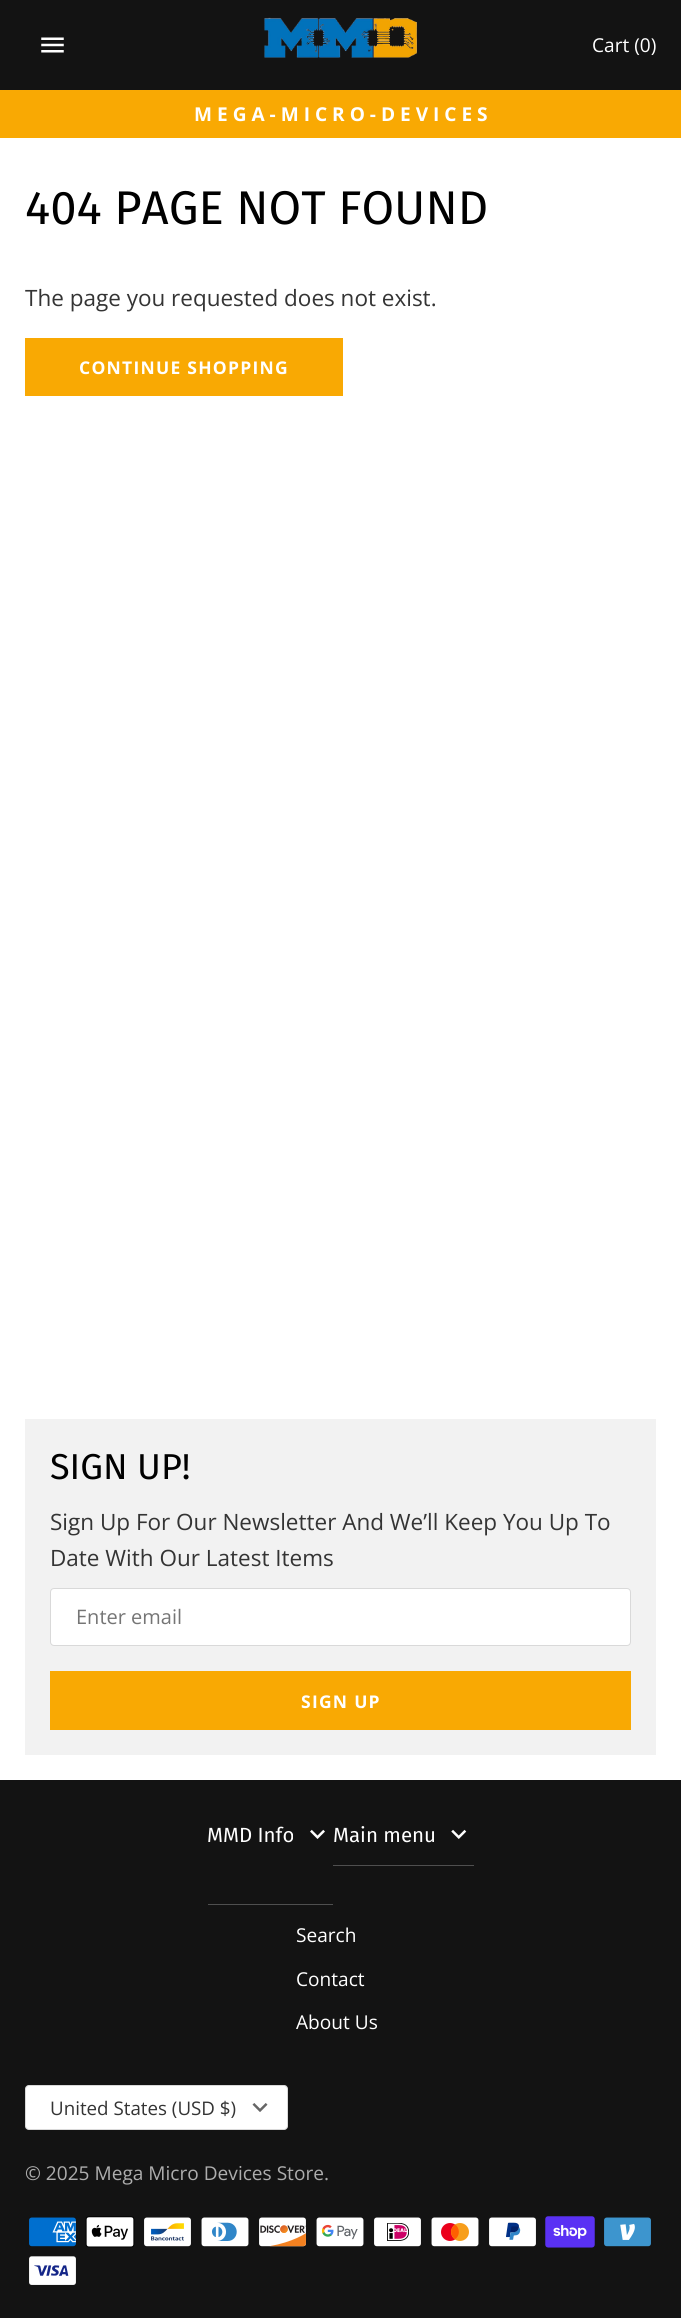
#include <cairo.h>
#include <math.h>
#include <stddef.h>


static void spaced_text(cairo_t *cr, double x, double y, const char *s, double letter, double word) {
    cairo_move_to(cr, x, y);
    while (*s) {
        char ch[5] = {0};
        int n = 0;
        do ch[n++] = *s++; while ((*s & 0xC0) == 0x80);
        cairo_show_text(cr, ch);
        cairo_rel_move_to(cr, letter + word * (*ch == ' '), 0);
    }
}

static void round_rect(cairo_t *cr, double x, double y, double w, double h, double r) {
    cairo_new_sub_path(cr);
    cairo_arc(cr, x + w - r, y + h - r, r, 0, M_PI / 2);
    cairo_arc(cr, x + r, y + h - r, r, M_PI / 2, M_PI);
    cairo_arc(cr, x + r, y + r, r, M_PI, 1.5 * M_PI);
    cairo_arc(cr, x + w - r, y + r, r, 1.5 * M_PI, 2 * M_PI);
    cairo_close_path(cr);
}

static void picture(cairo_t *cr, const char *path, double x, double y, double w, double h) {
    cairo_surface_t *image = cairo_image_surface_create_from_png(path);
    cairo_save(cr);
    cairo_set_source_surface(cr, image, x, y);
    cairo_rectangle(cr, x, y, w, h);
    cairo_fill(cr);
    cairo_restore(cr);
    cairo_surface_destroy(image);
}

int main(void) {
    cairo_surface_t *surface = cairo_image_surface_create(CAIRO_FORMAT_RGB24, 681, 2318);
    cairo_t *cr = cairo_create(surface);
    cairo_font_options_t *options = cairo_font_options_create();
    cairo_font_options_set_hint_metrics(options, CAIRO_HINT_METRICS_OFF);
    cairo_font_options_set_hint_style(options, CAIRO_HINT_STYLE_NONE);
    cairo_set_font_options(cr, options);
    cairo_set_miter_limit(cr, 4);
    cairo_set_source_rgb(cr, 1, 1, 1);
    cairo_paint(cr);
    cairo_set_source_rgb(cr, 0.075, 0.075, 0.075);
    cairo_rectangle(cr, 0, 0, 681, 90);
    cairo_fill(cr);
    picture(cr, "img1.png", 41, 37, 23, 16);
    picture(cr, "img2.png", 264, 17, 153, 41);
    cairo_select_font_face(cr, "Open Sans", CAIRO_FONT_SLANT_NORMAL, CAIRO_FONT_WEIGHT_NORMAL);
    cairo_set_font_size(cr, 19.1);
    cairo_set_source_rgb(cr, 1, 1, 1);
    cairo_move_to(cr, 592, 52);
    cairo_show_text(cr, "Cart (0)");
    cairo_set_source_rgb(cr, 0.976, 0.663, 0.012);
    cairo_rectangle(cr, 0, 90, 681, 48);
    cairo_fill(cr);
    cairo_select_font_face(cr, "Open Sans", CAIRO_FONT_SLANT_NORMAL, CAIRO_FONT_WEIGHT_BOLD);
    cairo_set_source_rgb(cr, 1, 1, 1);
    cairo_move_to(cr, 194, 121);
    cairo_show_text(cr, "M E G A - M I C R O - D E V I C E S");
    cairo_select_font_face(cr, "Fira Sans", CAIRO_FONT_SLANT_NORMAL, CAIRO_FONT_WEIGHT_NORMAL);
    cairo_set_font_size(cr, 47.25);
    cairo_set_source_rgb(cr, 0, 0, 0);
    cairo_move_to(cr, 25, 224);
    cairo_show_text(cr, "404 PAGE NOT FOUND");
    cairo_select_font_face(cr, "Open Sans", CAIRO_FONT_SLANT_NORMAL, CAIRO_FONT_WEIGHT_NORMAL);
    cairo_set_font_size(cr, 22.5);
    cairo_set_source_rgb(cr, 0.204, 0.204, 0.204);
    cairo_move_to(cr, 25, 306);
    cairo_show_text(cr, "The page you requested does not exist.");
    cairo_set_source_rgb(cr, 0.976, 0.663, 0.012);
    cairo_rectangle(cr, 25, 338, 318, 58);
    cairo_fill(cr);
    cairo_select_font_face(cr, "Open Sans", CAIRO_FONT_SLANT_NORMAL, CAIRO_FONT_WEIGHT_BOLD);
    cairo_set_font_size(cr, 17.5);
    cairo_set_source_rgb(cr, 1, 1, 1);
    spaced_text(cr, 79, 374, "CONTINUE SHOPPING", 1.25, 0);
    cairo_set_source_rgb(cr, 0.949, 0.949, 0.949);
    cairo_rectangle(cr, 25, 1419, 631, 336);
    cairo_fill(cr);
    cairo_select_font_face(cr, "Fira Sans", CAIRO_FONT_SLANT_NORMAL, CAIRO_FONT_WEIGHT_NORMAL);
    cairo_set_font_size(cr, 36);
    cairo_set_source_rgb(cr, 0, 0, 0);
    cairo_move_to(cr, 50, 1479);
    cairo_show_text(cr, "SIGN UP!");
    cairo_select_font_face(cr, "Open Sans", CAIRO_FONT_SLANT_NORMAL, CAIRO_FONT_WEIGHT_NORMAL);
    cairo_set_font_size(cr, 22.5);
    cairo_set_source_rgb(cr, 0.204, 0.204, 0.204);
    cairo_move_to(cr, 50, 1530);
    cairo_show_text(cr, "Sign Up For Our Newsletter And We’ll Keep You Up To");
    cairo_move_to(cr, 50, 1566);
    cairo_show_text(cr, "Date With Our Latest Items");
    cairo_set_source_rgb(cr, 1, 1, 1);
    round_rect(cr, 50, 1588, 581, 58, 4);
    cairo_fill(cr);
    round_rect(cr, 50.5, 1588.5, 580, 57, 3.5);
    cairo_set_source_rgba(cr, 0, 0, 0, 0.15);
    cairo_set_line_width(cr, 1);
    cairo_stroke(cr);
    cairo_set_font_size(cr, 20);
    cairo_set_source_rgb(cr, 0.459, 0.459, 0.459);
    cairo_move_to(cr, 76, 1624);
    cairo_show_text(cr, "Enter email");
    cairo_set_source_rgb(cr, 0.976, 0.663, 0.012);
    cairo_rectangle(cr, 50, 1671, 581, 59);
    cairo_fill(cr);
    cairo_select_font_face(cr, "Open Sans", CAIRO_FONT_SLANT_NORMAL, CAIRO_FONT_WEIGHT_BOLD);
    cairo_set_font_size(cr, 17.5);
    cairo_set_source_rgb(cr, 1, 1, 1);
    spaced_text(cr, 301, 1708, "SIGN UP", 1.25, 0);
    cairo_set_source_rgb(cr, 0.078, 0.078, 0.078);
    cairo_rectangle(cr, 0, 1780, 681, 538);
    cairo_fill(cr);
    cairo_set_source_rgb(cr, 0.31, 0.31, 0.31);
    cairo_rectangle(cr, 208, 1904, 125, 1);
    cairo_fill(cr);
    cairo_select_font_face(cr, "Fira Sans", CAIRO_FONT_SLANT_NORMAL, CAIRO_FONT_WEIGHT_NORMAL);
    cairo_set_font_size(cr, 20.5);
    cairo_set_source_rgb(cr, 1, 1, 1);
    cairo_move_to(cr, 207, 1842);
    cairo_show_text(cr, "MMD Info");
    picture(cr, "img3.png", 310, 1829, 15, 10);
    cairo_set_source_rgb(cr, 0.31, 0.31, 0.31);
    cairo_rectangle(cr, 333, 1865, 141, 1);
    cairo_fill(cr);
    cairo_set_source_rgb(cr, 1, 1, 1);
    cairo_move_to(cr, 333, 1842);
    cairo_show_text(cr, "Main menu");
    picture(cr, "img4.png", 451, 1829, 16, 10);
    cairo_select_font_face(cr, "Open Sans", CAIRO_FONT_SLANT_NORMAL, CAIRO_FONT_WEIGHT_NORMAL);
    cairo_set_font_size(cr, 19.1);
    cairo_move_to(cr, 296, 1942);
    cairo_show_text(cr, "Search");
    cairo_move_to(cr, 296, 1986);
    cairo_show_text(cr, "Contact");
    cairo_move_to(cr, 296, 2029);
    cairo_show_text(cr, "About Us");
    round_rect(cr, 25, 2085, 263, 45, 4);
    cairo_fill(cr);
    round_rect(cr, 25.5, 2085.5, 262, 44, 3.5);
    cairo_set_source_rgba(cr, 0, 0, 0, 0.15);
    cairo_stroke(cr);
    cairo_set_font_size(cr, 18.75);
    cairo_set_source_rgb(cr, 0.204, 0.204, 0.204);
    cairo_move_to(cr, 50, 2115);
    cairo_show_text(cr, "United States (USD $)");
    picture(cr, "img5.png", 252, 2103, 16, 9);
    cairo_set_font_size(cr, 19.1);
    cairo_set_source_rgb(cr, 0.678, 0.678, 0.678);
    cairo_move_to(cr, 25, 2180);
    cairo_show_text(cr, "© 2025 Mega Micro Devices Store.");
    picture(cr, "img6.png", 29, 2217, 47, 30);
    picture(cr, "img7.png", 85, 2216, 50, 32);
    picture(cr, "img8.png", 144, 2217, 47, 30);
    picture(cr, "img9.png", 201, 2217, 48, 30);
    picture(cr, "img10.png", 259, 2217, 47, 30);
    picture(cr, "img11.png", 316, 2217, 48, 30);
    picture(cr, "img12.png", 374, 2217, 47, 30);
    picture(cr, "img13.png", 431, 2217, 48, 30);
    picture(cr, "img14.png", 489, 2217, 47, 30);
    picture(cr, "img15.png", 545, 2216, 50, 32);
    picture(cr, "img16.png", 604, 2217, 47, 30);
    picture(cr, "img17.png", 29, 2256, 47, 29);
    cairo_surface_write_to_png(surface, "page.png");
    cairo_font_options_destroy(options);
    cairo_destroy(cr);
    cairo_surface_destroy(surface);
    return 0;
}
